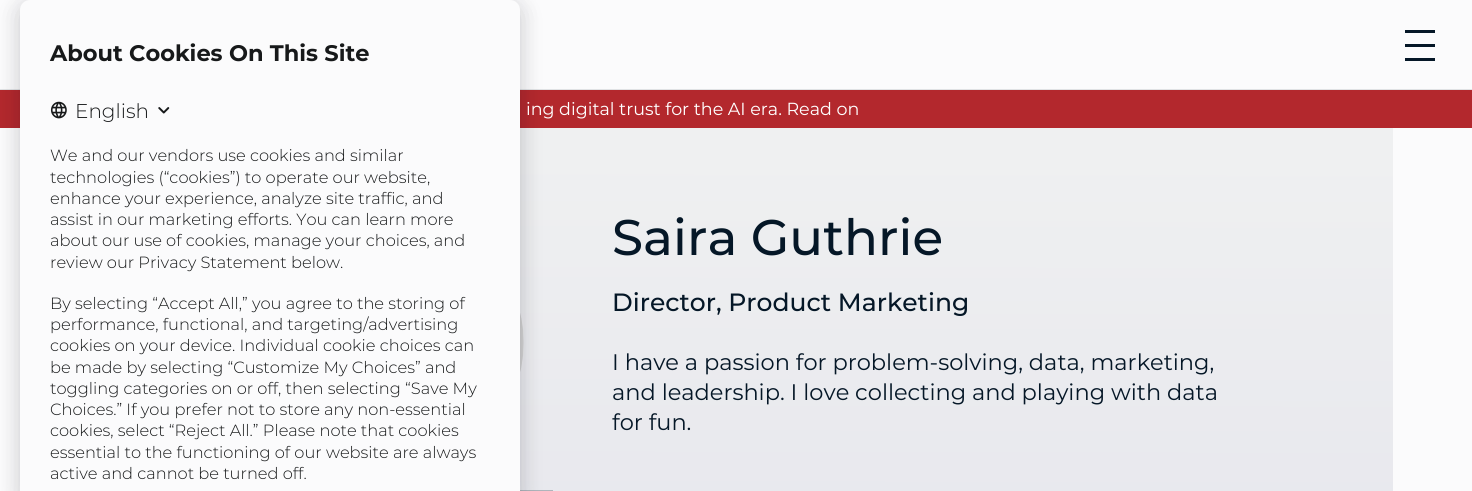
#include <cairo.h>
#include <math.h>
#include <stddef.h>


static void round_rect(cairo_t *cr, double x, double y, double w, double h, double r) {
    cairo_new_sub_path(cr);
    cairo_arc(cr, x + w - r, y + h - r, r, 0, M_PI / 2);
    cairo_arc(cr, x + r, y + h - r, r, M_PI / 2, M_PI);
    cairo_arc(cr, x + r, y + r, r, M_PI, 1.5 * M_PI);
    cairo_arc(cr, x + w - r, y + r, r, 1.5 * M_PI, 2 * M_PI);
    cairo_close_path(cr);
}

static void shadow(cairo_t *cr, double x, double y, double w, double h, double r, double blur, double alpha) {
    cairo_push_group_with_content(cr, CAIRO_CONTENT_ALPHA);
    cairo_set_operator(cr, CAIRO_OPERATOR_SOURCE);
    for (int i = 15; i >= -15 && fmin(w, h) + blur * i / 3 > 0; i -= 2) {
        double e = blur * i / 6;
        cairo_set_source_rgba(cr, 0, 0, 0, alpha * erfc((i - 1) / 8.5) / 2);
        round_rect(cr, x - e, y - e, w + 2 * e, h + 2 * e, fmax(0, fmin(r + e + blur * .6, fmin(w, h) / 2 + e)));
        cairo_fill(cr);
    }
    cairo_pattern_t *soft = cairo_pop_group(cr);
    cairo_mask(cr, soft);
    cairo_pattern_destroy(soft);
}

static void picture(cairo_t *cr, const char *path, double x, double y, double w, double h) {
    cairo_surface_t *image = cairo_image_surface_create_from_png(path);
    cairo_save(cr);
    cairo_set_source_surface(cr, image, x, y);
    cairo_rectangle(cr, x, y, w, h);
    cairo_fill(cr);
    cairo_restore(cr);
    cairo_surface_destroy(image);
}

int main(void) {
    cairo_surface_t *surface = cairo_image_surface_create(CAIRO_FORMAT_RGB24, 1472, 491);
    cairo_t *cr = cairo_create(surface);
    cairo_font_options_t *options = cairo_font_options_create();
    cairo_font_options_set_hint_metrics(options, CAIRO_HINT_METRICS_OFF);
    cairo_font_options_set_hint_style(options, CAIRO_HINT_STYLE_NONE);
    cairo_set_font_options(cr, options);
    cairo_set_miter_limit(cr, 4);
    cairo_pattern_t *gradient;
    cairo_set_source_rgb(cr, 0.984, 0.984, 0.988);
    cairo_paint(cr);
    cairo_set_source_rgb(cr, 0.878, 0.886, 0.894);
    cairo_rectangle(cr, 0, 89, 1472, 1);
    cairo_fill(cr);
    cairo_set_source_rgb(cr, 0.702, 0.157, 0.176);
    cairo_rectangle(cr, 0, 90, 1472, 38);
    cairo_fill(cr);
    gradient = cairo_pattern_create_linear(737, 127, 736, 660);
    cairo_pattern_add_color_stop_rgba(gradient, 0.05, 0.937, 0.941, 0.945, 1);
    cairo_pattern_add_color_stop_rgba(gradient, 1, 0.898, 0.898, 0.925, 1);
    cairo_set_source(cr, gradient);
    cairo_pattern_destroy(gradient);
    cairo_rectangle(cr, 520, 128, 873, 363);
    cairo_fill(cr);
    picture(cr, "img3.png", 520, 313, 4, 59);
    cairo_set_source_rgb(cr, 0.686, 0.71, 0.737);
    cairo_rectangle(cr, 520, 490, 33, 1);
    cairo_fill(cr);
    cairo_set_source_rgb(cr, 0.004, 0.004, 0.247);
    shadow(cr, 25, 8, 490, 481, 0, 12, 0.1);
    cairo_set_source_rgb(cr, 0, 0, 0);
    shadow(cr, 20, 6, 500, 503, 10, 12.5, 0.15);
    cairo_set_source_rgb(cr, 0.984, 0.984, 0.988);
    round_rect(cr, 20, 0, 500, 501, 10);
    cairo_fill(cr);
    cairo_select_font_face(cr, "Montserrat", CAIRO_FONT_SLANT_NORMAL, CAIRO_FONT_WEIGHT_BOLD);
    cairo_set_font_size(cr, 22.5);
    cairo_set_source_rgb(cr, 0.09, 0.098, 0.102);
    cairo_move_to(cr, 50, 61);
    cairo_show_text(cr, "About Cookies On This Site");
    picture(cr, "img1.png", 50, 101, 17, 18);
    cairo_select_font_face(cr, "Montserrat Light", CAIRO_FONT_SLANT_NORMAL, CAIRO_FONT_WEIGHT_NORMAL);
    cairo_set_font_size(cr, 20);
    cairo_move_to(cr, 75, 118);
    cairo_show_text(cr, "English");
    picture(cr, "img2.png", 158, 107, 12, 7);
    cairo_set_font_size(cr, 16.25);
    cairo_move_to(cr, 50, 161);
    cairo_show_text(cr, "We and our vendors use cookies and similar");
    cairo_move_to(cr, 50, 183);
    cairo_show_text(cr, "technologies (“cookies”) to operate our website,");
    cairo_move_to(cr, 50, 204);
    cairo_show_text(cr, "enhance your experience, analyze site traffic, and");
    cairo_move_to(cr, 50, 225);
    cairo_show_text(cr, "assist in our marketing efforts. You can learn more");
    cairo_move_to(cr, 50, 246);
    cairo_show_text(cr, "about our use of cookies, manage your choices, and");
    cairo_move_to(cr, 50, 268);
    cairo_show_text(cr, "review our Privacy Statement below.");
    cairo_move_to(cr, 50, 309);
    cairo_show_text(cr, "By selecting “Accept All,” you agree to the storing of");
    cairo_move_to(cr, 50, 330);
    cairo_show_text(cr, "performance, functional, and targeting/advertising");
    cairo_move_to(cr, 50, 351);
    cairo_show_text(cr, "cookies on your device. Individual cookie choices can");
    cairo_move_to(cr, 50, 373);
    cairo_show_text(cr, "be made by selecting “Customize My Choices” and");
    cairo_move_to(cr, 50, 394);
    cairo_show_text(cr, "toggling categories on or off, then selecting “Save My");
    cairo_move_to(cr, 50, 415);
    cairo_show_text(cr, "Choices.” If you prefer not to store any non-essential");
    cairo_move_to(cr, 50, 436);
    cairo_show_text(cr, "cookies, select “Reject All.” Please note that cookies");
    cairo_move_to(cr, 50, 458);
    cairo_show_text(cr, "essential to the functioning of our website are always");
    cairo_move_to(cr, 50, 479);
    cairo_show_text(cr, "active and cannot be turned off.");
    cairo_set_source_rgb(cr, 0.02, 0.09, 0.153);
    cairo_rectangle(cr, 1405, 30, 30, 3);
    cairo_fill(cr);
    cairo_rectangle(cr, 1405, 44, 30, 3);
    cairo_fill(cr);
    cairo_rectangle(cr, 1405, 58, 30, 3);
    cairo_fill(cr);
    cairo_select_font_face(cr, "Montserrat", CAIRO_FONT_SLANT_NORMAL, CAIRO_FONT_WEIGHT_NORMAL);
    cairo_set_font_size(cr, 17.5);
    cairo_set_source_rgb(cr, 1, 1, 1);
    cairo_move_to(cr, 526, 115);
    cairo_show_text(cr, "ing digital trust for the AI era. Read on");
    cairo_select_font_face(cr, "Montserrat Medium", CAIRO_FONT_SLANT_NORMAL, CAIRO_FONT_WEIGHT_NORMAL);
    cairo_set_font_size(cr, 50);
    cairo_set_source_rgb(cr, 0.02, 0.09, 0.153);
    cairo_move_to(cr, 612, 255);
    cairo_show_text(cr, "Saira Guthrie");
    cairo_set_font_size(cr, 25);
    cairo_move_to(cr, 612, 311);
    cairo_show_text(cr, "Director, Product Marketing");
    cairo_select_font_face(cr, "Montserrat", CAIRO_FONT_SLANT_NORMAL, CAIRO_FONT_WEIGHT_NORMAL);
    cairo_set_font_size(cr, 22.5);
    cairo_move_to(cr, 612, 370);
    cairo_show_text(cr, "I have a passion for problem-solving, data, marketing,");
    cairo_move_to(cr, 612, 400);
    cairo_show_text(cr, "and leadership. I love collecting and playing with data");
    cairo_move_to(cr, 612, 430);
    cairo_show_text(cr, "for fun.");
    cairo_surface_write_to_png(surface, "page.png");
    cairo_font_options_destroy(options);
    cairo_destroy(cr);
    cairo_surface_destroy(surface);
    return 0;
}
